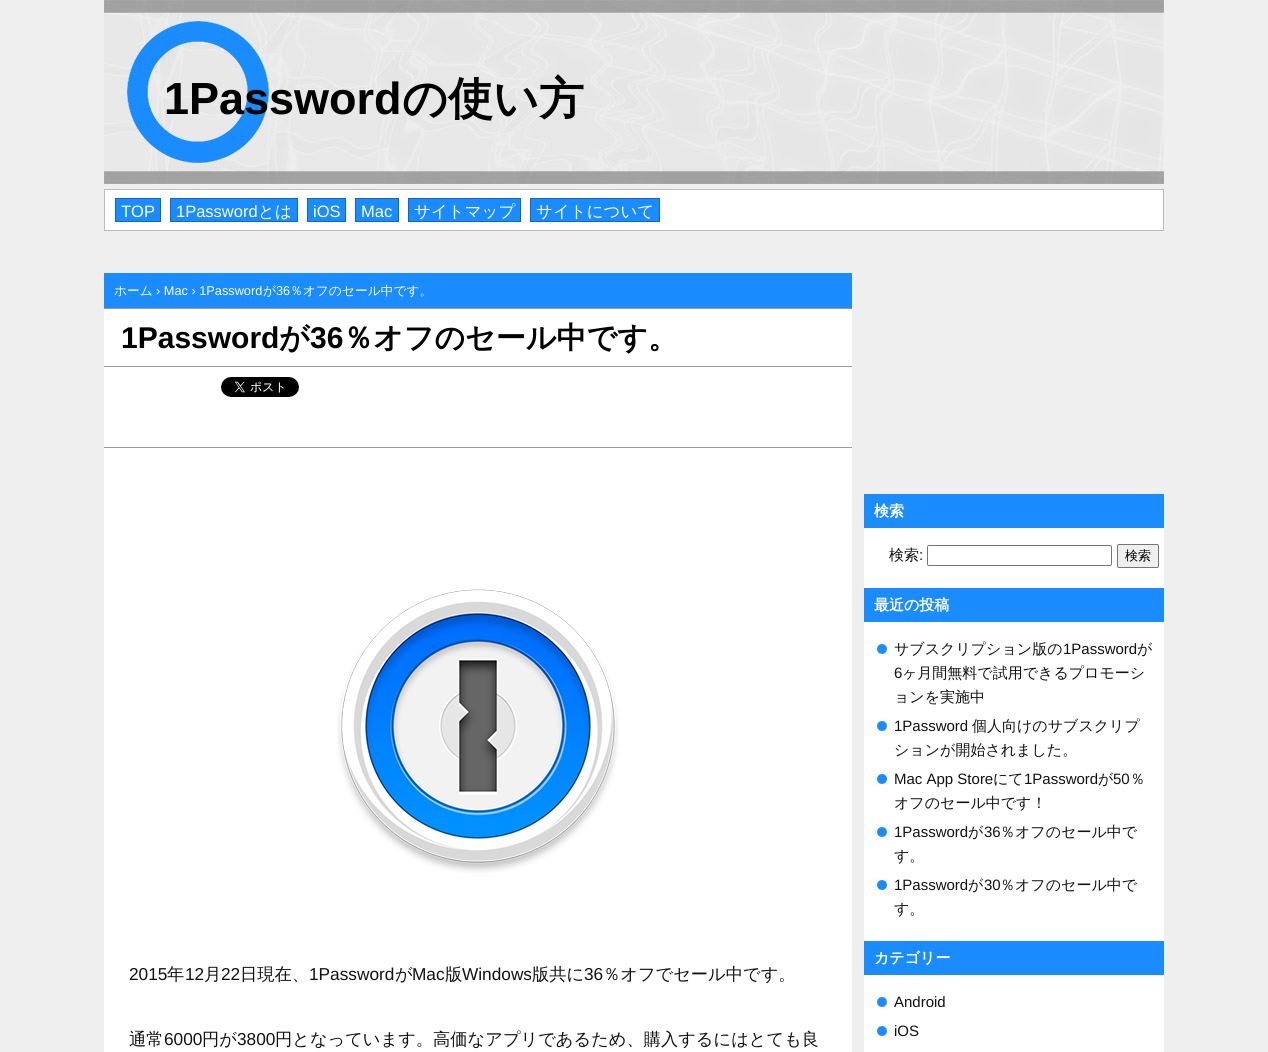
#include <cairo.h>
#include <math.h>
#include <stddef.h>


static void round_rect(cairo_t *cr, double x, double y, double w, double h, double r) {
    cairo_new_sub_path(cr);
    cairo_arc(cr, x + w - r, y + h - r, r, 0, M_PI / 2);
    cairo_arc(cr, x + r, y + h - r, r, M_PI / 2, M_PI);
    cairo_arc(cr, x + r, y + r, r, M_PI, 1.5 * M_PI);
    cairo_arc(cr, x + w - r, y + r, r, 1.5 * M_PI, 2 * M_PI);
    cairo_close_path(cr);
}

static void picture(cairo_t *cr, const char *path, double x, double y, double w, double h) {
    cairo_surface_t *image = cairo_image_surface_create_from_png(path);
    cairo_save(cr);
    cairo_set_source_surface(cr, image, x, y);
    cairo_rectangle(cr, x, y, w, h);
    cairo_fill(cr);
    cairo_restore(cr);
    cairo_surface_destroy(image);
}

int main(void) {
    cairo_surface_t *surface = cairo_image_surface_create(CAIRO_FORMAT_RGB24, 1268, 1052);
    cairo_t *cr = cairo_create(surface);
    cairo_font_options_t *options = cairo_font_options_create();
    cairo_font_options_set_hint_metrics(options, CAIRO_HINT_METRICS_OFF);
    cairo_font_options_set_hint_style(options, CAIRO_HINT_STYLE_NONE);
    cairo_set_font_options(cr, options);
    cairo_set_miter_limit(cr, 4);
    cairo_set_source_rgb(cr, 0.937, 0.937, 0.937);
    cairo_paint(cr);
    picture(cr, "img1.png", 104, 0, 1060, 184);
    cairo_select_font_face(cr, "Liberation Sans", CAIRO_FONT_SLANT_NORMAL, CAIRO_FONT_WEIGHT_BOLD);
    cairo_set_font_size(cr, 45);
    cairo_set_source_rgb(cr, 0, 0, 0);
    cairo_move_to(cr, 164, 114);
    cairo_show_text(cr, "1Password");
    cairo_select_font_face(cr, "WenQuanYi Zen Hei", CAIRO_FONT_SLANT_NORMAL, CAIRO_FONT_WEIGHT_BOLD);
    cairo_move_to(cr, 402, 114);
    cairo_show_text(cr, "の使い方");
    cairo_set_source_rgb(cr, 1, 1, 1);
    cairo_rectangle(cr, 104.5, 189.5, 1059, 41);
    cairo_fill_preserve(cr);
    cairo_set_source_rgb(cr, 0.733, 0.733, 0.733);
    cairo_set_line_width(cr, 1);
    cairo_stroke(cr);
    cairo_set_source_rgb(cr, 0.102, 0.549, 1);
    cairo_rectangle(cr, 115.5, 198.5, 45, 23);
    cairo_fill_preserve(cr);
    cairo_set_source_rgb(cr, 0.071, 0.404, 0.737);
    cairo_stroke(cr);
    cairo_select_font_face(cr, "Liberation Sans", CAIRO_FONT_SLANT_NORMAL, CAIRO_FONT_WEIGHT_NORMAL);
    cairo_set_font_size(cr, 16.5);
    cairo_set_source_rgb(cr, 1, 1, 1);
    cairo_move_to(cr, 121, 217);
    cairo_show_text(cr, "TOP");
    cairo_set_source_rgb(cr, 0.102, 0.549, 1);
    cairo_rectangle(cr, 170.5, 198.5, 127, 23);
    cairo_fill_preserve(cr);
    cairo_set_source_rgb(cr, 0.071, 0.404, 0.737);
    cairo_stroke(cr);
    cairo_set_source_rgb(cr, 1, 1, 1);
    cairo_move_to(cr, 176, 217);
    cairo_show_text(cr, "1Password");
    cairo_select_font_face(cr, "WenQuanYi Zen Hei Medium", CAIRO_FONT_SLANT_NORMAL, CAIRO_FONT_WEIGHT_NORMAL);
    cairo_move_to(cr, 258, 217);
    cairo_show_text(cr, "とは");
    cairo_set_source_rgb(cr, 0.102, 0.549, 1);
    cairo_rectangle(cr, 307.5, 198.5, 38, 23);
    cairo_fill_preserve(cr);
    cairo_set_source_rgb(cr, 0.071, 0.404, 0.737);
    cairo_stroke(cr);
    cairo_select_font_face(cr, "Liberation Sans", CAIRO_FONT_SLANT_NORMAL, CAIRO_FONT_WEIGHT_NORMAL);
    cairo_set_source_rgb(cr, 1, 1, 1);
    cairo_move_to(cr, 313, 217);
    cairo_show_text(cr, "iOS");
    cairo_set_source_rgb(cr, 0.102, 0.549, 1);
    cairo_rectangle(cr, 355.5, 198.5, 43, 23);
    cairo_fill_preserve(cr);
    cairo_set_source_rgb(cr, 0.071, 0.404, 0.737);
    cairo_stroke(cr);
    cairo_set_source_rgb(cr, 1, 1, 1);
    cairo_move_to(cr, 361, 217);
    cairo_show_text(cr, "Mac");
    cairo_set_source_rgb(cr, 0.102, 0.549, 1);
    cairo_rectangle(cr, 408.5, 198.5, 112, 23);
    cairo_fill_preserve(cr);
    cairo_set_source_rgb(cr, 0.071, 0.404, 0.737);
    cairo_stroke(cr);
    cairo_select_font_face(cr, "WenQuanYi Zen Hei Medium", CAIRO_FONT_SLANT_NORMAL, CAIRO_FONT_WEIGHT_NORMAL);
    cairo_set_source_rgb(cr, 1, 1, 1);
    cairo_move_to(cr, 414, 217);
    cairo_show_text(cr, "サイトマップ");
    cairo_set_source_rgb(cr, 0.102, 0.549, 1);
    cairo_rectangle(cr, 530.5, 198.5, 129, 23);
    cairo_fill_preserve(cr);
    cairo_set_source_rgb(cr, 0.071, 0.404, 0.737);
    cairo_stroke(cr);
    cairo_set_source_rgb(cr, 1, 1, 1);
    cairo_move_to(cr, 536, 217);
    cairo_show_text(cr, "サイトについて");
    cairo_rectangle(cr, 104, 309, 748, 743);
    cairo_fill(cr);
    cairo_set_source_rgb(cr, 0.102, 0.549, 1);
    cairo_rectangle(cr, 104, 273, 748, 35);
    cairo_fill(cr);
    cairo_set_source_rgb(cr, 0.6, 0.6, 0.6);
    cairo_rectangle(cr, 104, 308, 748, 1);
    cairo_fill(cr);
    cairo_set_font_size(cr, 12.75);
    cairo_set_source_rgb(cr, 1, 1, 1);
    cairo_move_to(cr, 114, 295);
    cairo_show_text(cr, "ホーム");
    cairo_select_font_face(cr, "Liberation Sans", CAIRO_FONT_SLANT_NORMAL, CAIRO_FONT_WEIGHT_NORMAL);
    cairo_move_to(cr, 156, 295);
    cairo_show_text(cr, "› Mac › 1Password");
    cairo_select_font_face(cr, "WenQuanYi Zen Hei Medium", CAIRO_FONT_SLANT_NORMAL, CAIRO_FONT_WEIGHT_NORMAL);
    cairo_move_to(cr, 263, 295);
    cairo_show_text(cr, "が");
    cairo_select_font_face(cr, "Liberation Sans", CAIRO_FONT_SLANT_NORMAL, CAIRO_FONT_WEIGHT_NORMAL);
    cairo_move_to(cr, 276, 295);
    cairo_show_text(cr, "36");
    cairo_select_font_face(cr, "WenQuanYi Zen Hei Medium", CAIRO_FONT_SLANT_NORMAL, CAIRO_FONT_WEIGHT_NORMAL);
    cairo_move_to(cr, 290, 295);
    cairo_show_text(cr, "％オフのセール中です。");
    cairo_select_font_face(cr, "Liberation Sans", CAIRO_FONT_SLANT_NORMAL, CAIRO_FONT_WEIGHT_BOLD);
    cairo_set_font_size(cr, 30);
    cairo_set_source_rgb(cr, 0, 0, 0);
    cairo_move_to(cr, 121, 348);
    cairo_show_text(cr, "1Password");
    cairo_select_font_face(cr, "WenQuanYi Zen Hei", CAIRO_FONT_SLANT_NORMAL, CAIRO_FONT_WEIGHT_BOLD);
    cairo_move_to(cr, 279, 348);
    cairo_show_text(cr, "が");
    cairo_select_font_face(cr, "Liberation Sans", CAIRO_FONT_SLANT_NORMAL, CAIRO_FONT_WEIGHT_BOLD);
    cairo_move_to(cr, 310, 348);
    cairo_show_text(cr, "36");
    cairo_select_font_face(cr, "WenQuanYi Zen Hei", CAIRO_FONT_SLANT_NORMAL, CAIRO_FONT_WEIGHT_BOLD);
    cairo_move_to(cr, 343, 348);
    cairo_show_text(cr, "％オフのセール中です。");
    cairo_set_source_rgb(cr, 0.6, 0.6, 0.6);
    cairo_rectangle(cr, 104, 366, 748, 1);
    cairo_fill(cr);
    cairo_rectangle(cr, 104, 447, 748, 1);
    cairo_fill(cr);
    picture(cr, "img2.png", 221, 377, 78, 20);
    picture(cr, "img3.png", 337, 589, 282, 284);
    cairo_select_font_face(cr, "Liberation Sans", CAIRO_FONT_SLANT_NORMAL, CAIRO_FONT_WEIGHT_NORMAL);
    cairo_set_font_size(cr, 17.25);
    cairo_set_source_rgb(cr, 0.067, 0.067, 0.067);
    cairo_move_to(cr, 129, 980);
    cairo_show_text(cr, "2015");
    cairo_select_font_face(cr, "WenQuanYi Zen Hei Medium", CAIRO_FONT_SLANT_NORMAL, CAIRO_FONT_WEIGHT_NORMAL);
    cairo_move_to(cr, 167, 980);
    cairo_show_text(cr, "年");
    cairo_select_font_face(cr, "Liberation Sans", CAIRO_FONT_SLANT_NORMAL, CAIRO_FONT_WEIGHT_NORMAL);
    cairo_move_to(cr, 185, 980);
    cairo_show_text(cr, "12");
    cairo_select_font_face(cr, "WenQuanYi Zen Hei Medium", CAIRO_FONT_SLANT_NORMAL, CAIRO_FONT_WEIGHT_NORMAL);
    cairo_move_to(cr, 204, 980);
    cairo_show_text(cr, "月");
    cairo_select_font_face(cr, "Liberation Sans", CAIRO_FONT_SLANT_NORMAL, CAIRO_FONT_WEIGHT_NORMAL);
    cairo_move_to(cr, 221, 980);
    cairo_show_text(cr, "22");
    cairo_select_font_face(cr, "WenQuanYi Zen Hei Medium", CAIRO_FONT_SLANT_NORMAL, CAIRO_FONT_WEIGHT_NORMAL);
    cairo_move_to(cr, 240, 980);
    cairo_show_text(cr, "日現在、");
    cairo_select_font_face(cr, "Liberation Sans", CAIRO_FONT_SLANT_NORMAL, CAIRO_FONT_WEIGHT_NORMAL);
    cairo_move_to(cr, 309, 980);
    cairo_show_text(cr, "1Password");
    cairo_select_font_face(cr, "WenQuanYi Zen Hei Medium", CAIRO_FONT_SLANT_NORMAL, CAIRO_FONT_WEIGHT_NORMAL);
    cairo_move_to(cr, 395, 980);
    cairo_show_text(cr, "が");
    cairo_select_font_face(cr, "Liberation Sans", CAIRO_FONT_SLANT_NORMAL, CAIRO_FONT_WEIGHT_NORMAL);
    cairo_move_to(cr, 412, 980);
    cairo_show_text(cr, "Mac");
    cairo_select_font_face(cr, "WenQuanYi Zen Hei Medium", CAIRO_FONT_SLANT_NORMAL, CAIRO_FONT_WEIGHT_NORMAL);
    cairo_move_to(cr, 445, 980);
    cairo_show_text(cr, "版");
    cairo_select_font_face(cr, "Liberation Sans", CAIRO_FONT_SLANT_NORMAL, CAIRO_FONT_WEIGHT_NORMAL);
    cairo_move_to(cr, 462, 980);
    cairo_show_text(cr, "Windows");
    cairo_select_font_face(cr, "WenQuanYi Zen Hei Medium", CAIRO_FONT_SLANT_NORMAL, CAIRO_FONT_WEIGHT_NORMAL);
    cairo_move_to(cr, 532, 980);
    cairo_show_text(cr, "版共に");
    cairo_select_font_face(cr, "Liberation Sans", CAIRO_FONT_SLANT_NORMAL, CAIRO_FONT_WEIGHT_NORMAL);
    cairo_move_to(cr, 584, 980);
    cairo_show_text(cr, "36");
    cairo_select_font_face(cr, "WenQuanYi Zen Hei Medium", CAIRO_FONT_SLANT_NORMAL, CAIRO_FONT_WEIGHT_NORMAL);
    cairo_move_to(cr, 603, 980);
    cairo_show_text(cr, "％オフでセール中です。");
    cairo_move_to(cr, 129, 1045);
    cairo_show_text(cr, "通常");
    cairo_select_font_face(cr, "Liberation Sans", CAIRO_FONT_SLANT_NORMAL, CAIRO_FONT_WEIGHT_NORMAL);
    cairo_move_to(cr, 164, 1045);
    cairo_show_text(cr, "6000");
    cairo_select_font_face(cr, "WenQuanYi Zen Hei Medium", CAIRO_FONT_SLANT_NORMAL, CAIRO_FONT_WEIGHT_NORMAL);
    cairo_move_to(cr, 202, 1045);
    cairo_show_text(cr, "円が");
    cairo_select_font_face(cr, "Liberation Sans", CAIRO_FONT_SLANT_NORMAL, CAIRO_FONT_WEIGHT_NORMAL);
    cairo_move_to(cr, 237, 1045);
    cairo_show_text(cr, "3800");
    cairo_select_font_face(cr, "WenQuanYi Zen Hei Medium", CAIRO_FONT_SLANT_NORMAL, CAIRO_FONT_WEIGHT_NORMAL);
    cairo_move_to(cr, 275, 1045);
    cairo_show_text(cr, "円となっています。高価なアプリであるため、購入するにはとても良");
    cairo_set_source_rgb(cr, 1, 1, 1);
    cairo_rectangle(cr, 864, 528, 300, 524);
    cairo_fill(cr);
    cairo_set_source_rgb(cr, 0.102, 0.549, 1);
    cairo_rectangle(cr, 864, 494, 300, 34);
    cairo_fill(cr);
    cairo_select_font_face(cr, "WenQuanYi Zen Hei", CAIRO_FONT_SLANT_NORMAL, CAIRO_FONT_WEIGHT_BOLD);
    cairo_set_font_size(cr, 15);
    cairo_set_source_rgb(cr, 1, 1, 1);
    cairo_move_to(cr, 874, 516);
    cairo_show_text(cr, "検索");
    cairo_select_font_face(cr, "WenQuanYi Zen Hei Medium", CAIRO_FONT_SLANT_NORMAL, CAIRO_FONT_WEIGHT_NORMAL);
    cairo_set_source_rgb(cr, 0.067, 0.067, 0.067);
    cairo_move_to(cr, 889, 560);
    cairo_show_text(cr, "検索");
    cairo_select_font_face(cr, "Liberation Sans", CAIRO_FONT_SLANT_NORMAL, CAIRO_FONT_WEIGHT_NORMAL);
    cairo_move_to(cr, 919, 560);
    cairo_show_text(cr, ":");
    round_rect(cr, 927.5, 545.5, 184, 20, 1.5);
    cairo_set_source_rgb(cr, 0.463, 0.463, 0.463);
    cairo_stroke(cr);
    cairo_set_source_rgb(cr, 0.937, 0.937, 0.937);
    round_rect(cr, 1117.5, 544.5, 41, 23, 1.5);
    cairo_fill_preserve(cr);
    cairo_set_source_rgb(cr, 0.463, 0.463, 0.463);
    cairo_stroke(cr);
    cairo_select_font_face(cr, "WenQuanYi Zen Hei Medium", CAIRO_FONT_SLANT_NORMAL, CAIRO_FONT_WEIGHT_NORMAL);
    cairo_set_font_size(cr, 13);
    cairo_set_source_rgb(cr, 0, 0, 0);
    cairo_move_to(cr, 1125, 560);
    cairo_show_text(cr, "検索");
    cairo_set_source_rgb(cr, 0.102, 0.549, 1);
    cairo_rectangle(cr, 864, 588, 300, 34);
    cairo_fill(cr);
    cairo_select_font_face(cr, "WenQuanYi Zen Hei", CAIRO_FONT_SLANT_NORMAL, CAIRO_FONT_WEIGHT_BOLD);
    cairo_set_font_size(cr, 15);
    cairo_set_source_rgb(cr, 1, 1, 1);
    cairo_move_to(cr, 874, 610);
    cairo_show_text(cr, "最近の投稿");
    picture(cr, "img4.png", 877, 644, 10, 10);
    cairo_select_font_face(cr, "WenQuanYi Zen Hei Medium", CAIRO_FONT_SLANT_NORMAL, CAIRO_FONT_WEIGHT_NORMAL);
    cairo_set_source_rgb(cr, 0.067, 0.067, 0.067);
    cairo_move_to(cr, 894, 654);
    cairo_show_text(cr, "サブスクリプション版の");
    cairo_select_font_face(cr, "Liberation Sans", CAIRO_FONT_SLANT_NORMAL, CAIRO_FONT_WEIGHT_NORMAL);
    cairo_move_to(cr, 1063, 654);
    cairo_show_text(cr, "1Password");
    cairo_select_font_face(cr, "WenQuanYi Zen Hei Medium", CAIRO_FONT_SLANT_NORMAL, CAIRO_FONT_WEIGHT_NORMAL);
    cairo_move_to(cr, 1137, 654);
    cairo_show_text(cr, "が");
    cairo_select_font_face(cr, "Liberation Sans", CAIRO_FONT_SLANT_NORMAL, CAIRO_FONT_WEIGHT_NORMAL);
    cairo_move_to(cr, 894, 678);
    cairo_show_text(cr, "6");
    cairo_select_font_face(cr, "WenQuanYi Zen Hei Medium", CAIRO_FONT_SLANT_NORMAL, CAIRO_FONT_WEIGHT_NORMAL);
    cairo_move_to(cr, 902, 678);
    cairo_show_text(cr, "ヶ月間無料で試用できるプロモーシ");
    cairo_move_to(cr, 894, 702);
    cairo_show_text(cr, "ョンを実施中");
    picture(cr, "img4.png", 877, 721, 10, 10);
    cairo_select_font_face(cr, "Liberation Sans", CAIRO_FONT_SLANT_NORMAL, CAIRO_FONT_WEIGHT_NORMAL);
    cairo_move_to(cr, 894, 731);
    cairo_show_text(cr, "1Password");
    cairo_select_font_face(cr, "WenQuanYi Zen Hei Medium", CAIRO_FONT_SLANT_NORMAL, CAIRO_FONT_WEIGHT_NORMAL);
    cairo_move_to(cr, 972, 731);
    cairo_show_text(cr, "個人向けのサブスクリプ");
    cairo_move_to(cr, 894, 755);
    cairo_show_text(cr, "ションが開始されました。");
    picture(cr, "img4.png", 877, 774, 10, 10);
    cairo_select_font_face(cr, "Liberation Sans", CAIRO_FONT_SLANT_NORMAL, CAIRO_FONT_WEIGHT_NORMAL);
    cairo_move_to(cr, 894, 784);
    cairo_show_text(cr, "Mac App Store");
    cairo_select_font_face(cr, "WenQuanYi Zen Hei Medium", CAIRO_FONT_SLANT_NORMAL, CAIRO_FONT_WEIGHT_NORMAL);
    cairo_move_to(cr, 993, 784);
    cairo_show_text(cr, "にて");
    cairo_select_font_face(cr, "Liberation Sans", CAIRO_FONT_SLANT_NORMAL, CAIRO_FONT_WEIGHT_NORMAL);
    cairo_move_to(cr, 1024, 784);
    cairo_show_text(cr, "1Password");
    cairo_select_font_face(cr, "WenQuanYi Zen Hei Medium", CAIRO_FONT_SLANT_NORMAL, CAIRO_FONT_WEIGHT_NORMAL);
    cairo_move_to(cr, 1098, 784);
    cairo_show_text(cr, "が");
    cairo_select_font_face(cr, "Liberation Sans", CAIRO_FONT_SLANT_NORMAL, CAIRO_FONT_WEIGHT_NORMAL);
    cairo_move_to(cr, 1113, 784);
    cairo_show_text(cr, "50");
    cairo_select_font_face(cr, "WenQuanYi Zen Hei Medium", CAIRO_FONT_SLANT_NORMAL, CAIRO_FONT_WEIGHT_NORMAL);
    cairo_move_to(cr, 1130, 784);
    cairo_show_text(cr, "％");
    cairo_move_to(cr, 894, 808);
    cairo_show_text(cr, "オフのセール中です！");
    picture(cr, "img4.png", 877, 827, 10, 10);
    cairo_select_font_face(cr, "Liberation Sans", CAIRO_FONT_SLANT_NORMAL, CAIRO_FONT_WEIGHT_NORMAL);
    cairo_move_to(cr, 894, 837);
    cairo_show_text(cr, "1Password");
    cairo_select_font_face(cr, "WenQuanYi Zen Hei Medium", CAIRO_FONT_SLANT_NORMAL, CAIRO_FONT_WEIGHT_NORMAL);
    cairo_move_to(cr, 968, 837);
    cairo_show_text(cr, "が");
    cairo_select_font_face(cr, "Liberation Sans", CAIRO_FONT_SLANT_NORMAL, CAIRO_FONT_WEIGHT_NORMAL);
    cairo_move_to(cr, 984, 837);
    cairo_show_text(cr, "36");
    cairo_select_font_face(cr, "WenQuanYi Zen Hei Medium", CAIRO_FONT_SLANT_NORMAL, CAIRO_FONT_WEIGHT_NORMAL);
    cairo_move_to(cr, 1000, 837);
    cairo_show_text(cr, "％オフのセール中で");
    cairo_move_to(cr, 894, 861);
    cairo_show_text(cr, "す。");
    picture(cr, "img4.png", 877, 880, 10, 10);
    cairo_select_font_face(cr, "Liberation Sans", CAIRO_FONT_SLANT_NORMAL, CAIRO_FONT_WEIGHT_NORMAL);
    cairo_move_to(cr, 894, 890);
    cairo_show_text(cr, "1Password");
    cairo_select_font_face(cr, "WenQuanYi Zen Hei Medium", CAIRO_FONT_SLANT_NORMAL, CAIRO_FONT_WEIGHT_NORMAL);
    cairo_move_to(cr, 968, 890);
    cairo_show_text(cr, "が");
    cairo_select_font_face(cr, "Liberation Sans", CAIRO_FONT_SLANT_NORMAL, CAIRO_FONT_WEIGHT_NORMAL);
    cairo_move_to(cr, 984, 890);
    cairo_show_text(cr, "30");
    cairo_select_font_face(cr, "WenQuanYi Zen Hei Medium", CAIRO_FONT_SLANT_NORMAL, CAIRO_FONT_WEIGHT_NORMAL);
    cairo_move_to(cr, 1000, 890);
    cairo_show_text(cr, "％オフのセール中で");
    cairo_move_to(cr, 894, 914);
    cairo_show_text(cr, "す。");
    cairo_set_source_rgb(cr, 0.102, 0.549, 1);
    cairo_rectangle(cr, 864, 941, 300, 34);
    cairo_fill(cr);
    cairo_select_font_face(cr, "WenQuanYi Zen Hei", CAIRO_FONT_SLANT_NORMAL, CAIRO_FONT_WEIGHT_BOLD);
    cairo_set_source_rgb(cr, 1, 1, 1);
    cairo_move_to(cr, 874, 963);
    cairo_show_text(cr, "カテゴリー");
    picture(cr, "img4.png", 877, 997, 10, 10);
    cairo_select_font_face(cr, "Liberation Sans", CAIRO_FONT_SLANT_NORMAL, CAIRO_FONT_WEIGHT_NORMAL);
    cairo_set_source_rgb(cr, 0.067, 0.067, 0.067);
    cairo_move_to(cr, 894, 1007);
    cairo_show_text(cr, "Android");
    picture(cr, "img4.png", 877, 1026, 10, 10);
    cairo_move_to(cr, 894, 1036);
    cairo_show_text(cr, "iOS");
    cairo_surface_write_to_png(surface, "page.png");
    cairo_font_options_destroy(options);
    cairo_destroy(cr);
    cairo_surface_destroy(surface);
    return 0;
}
